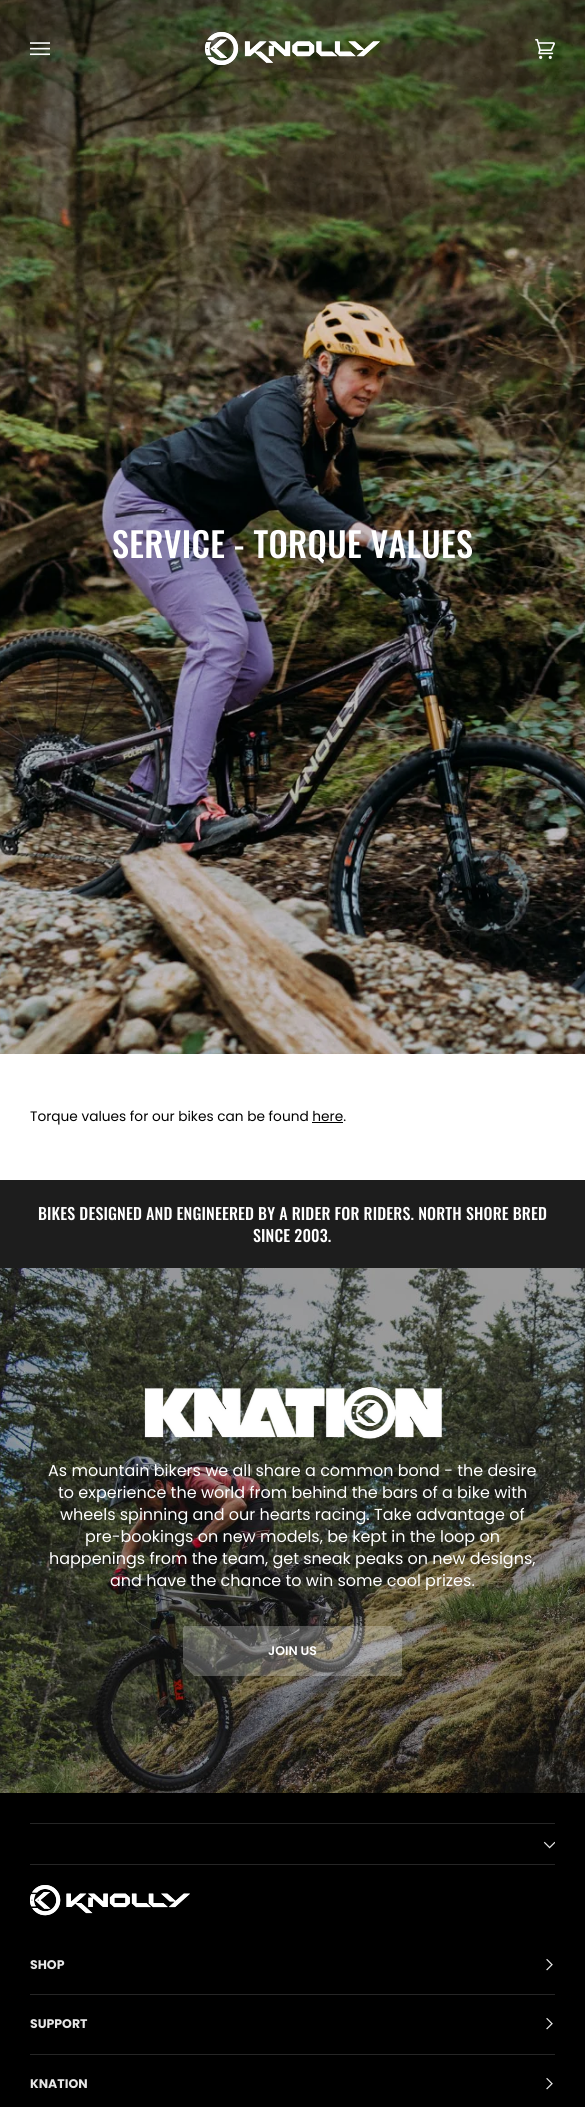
#include <cairo.h>
#include <math.h>
#include <stddef.h>


static void spaced_text(cairo_t *cr, double x, double y, const char *s, double letter, double word) {
    cairo_move_to(cr, x, y);
    while (*s) {
        char ch[5] = {0};
        int n = 0;
        do ch[n++] = *s++; while ((*s & 0xC0) == 0x80);
        cairo_show_text(cr, ch);
        cairo_rel_move_to(cr, letter + word * (*ch == ' '), 0);
    }
}

static void picture(cairo_t *cr, const char *path, double x, double y, double w, double h) {
    cairo_surface_t *image = cairo_image_surface_create_from_png(path);
    cairo_save(cr);
    cairo_set_source_surface(cr, image, x, y);
    cairo_rectangle(cr, x, y, w, h);
    cairo_fill(cr);
    cairo_restore(cr);
    cairo_surface_destroy(image);
}

int main(void) {
    cairo_surface_t *surface = cairo_image_surface_create(CAIRO_FORMAT_RGB24, 585, 2107);
    cairo_t *cr = cairo_create(surface);
    cairo_font_options_t *options = cairo_font_options_create();
    cairo_font_options_set_hint_metrics(options, CAIRO_HINT_METRICS_OFF);
    cairo_font_options_set_hint_style(options, CAIRO_HINT_STYLE_NONE);
    cairo_set_font_options(cr, options);
    cairo_set_miter_limit(cr, 4);
    cairo_set_source_rgb(cr, 1, 1, 1);
    cairo_paint(cr);
    picture(cr, "img4.png", 0, 0, 585, 1054);
    picture(cr, "img1.png", 30, 42, 20, 14);
    picture(cr, "img2.png", 205, 32, 175, 33);
    picture(cr, "img3.png", 535, 39, 20, 20);
    cairo_select_font_face(cr, "Oswald Medium", CAIRO_FONT_SLANT_NORMAL, CAIRO_FONT_WEIGHT_NORMAL);
    cairo_set_font_size(cr, 34.25);
    cairo_set_source_rgb(cr, 1, 1, 1);
    spaced_text(cr, 112, 558, "SERVICE - TORQUE VALUES", 0.3, 0);
    cairo_select_font_face(cr, "Poppins", CAIRO_FONT_SLANT_NORMAL, CAIRO_FONT_WEIGHT_NORMAL);
    cairo_set_font_size(cr, 13.7);
    cairo_set_source_rgb(cr, 0, 0, 0);
    cairo_move_to(cr, 30, 1121);
    cairo_show_text(cr, "Torque values for our bikes can be found here.");
    cairo_rectangle(cr, 312, 1122, 31, 1);
    cairo_fill(cr);
    cairo_set_source_rgb(cr, 0.114, 0.114, 0.114);
    cairo_rectangle(cr, 0, 1180, 585, 88);
    cairo_fill(cr);
    cairo_select_font_face(cr, "Oswald Medium", CAIRO_FONT_SLANT_NORMAL, CAIRO_FONT_WEIGHT_NORMAL);
    cairo_set_font_size(cr, 16);
    cairo_set_source_rgb(cr, 1, 1, 1);
    spaced_text(cr, 38, 1220, "BIKES DESIGNED AND ENGINEERED BY A RIDER FOR RIDERS. NORTH SHORE BRED", 0.15, 0);
    spaced_text(cr, 253, 1242, "SINCE 2003.", 0.15, 0);
    picture(cr, "img5.png", 0, 1268, 585, 525);
    picture(cr, "img6.png", 144, 1386, 299, 53);
    cairo_select_font_face(cr, "Poppins", CAIRO_FONT_SLANT_NORMAL, CAIRO_FONT_WEIGHT_NORMAL);
    cairo_move_to(cr, 48, 1476);
    cairo_show_text(cr, "As mountain bikers we all share a common bond - the desire");
    cairo_move_to(cr, 58, 1498);
    cairo_show_text(cr, "to experience the world from behind the bars of a bike with");
    cairo_move_to(cr, 60, 1520);
    cairo_show_text(cr, "wheels spinning and our hearts racing. Take advantage of");
    cairo_move_to(cr, 85, 1542);
    cairo_show_text(cr, "pre-bookings on new models, be kept in the loop on");
    cairo_move_to(cr, 49, 1564);
    cairo_show_text(cr, "happenings from the team, get sneak peaks on new designs,");
    cairo_move_to(cr, 110, 1586);
    cairo_show_text(cr, "and have the chance to win some cool prizes.");
    cairo_set_source_rgba(cr, 1, 1, 1, 0.25);
    cairo_new_path(cr);
    cairo_move_to(cr, 185, 1626);
    cairo_curve_to(cr, 184, 1626, 183, 1627, 183, 1628);
    cairo_line_to(cr, 183, 1664);
    cairo_line_to(cr, 194, 1676);
    cairo_line_to(cr, 401, 1676);
    cairo_line_to(cr, 402, 1675);
    cairo_line_to(cr, 402, 1638);
    cairo_line_to(cr, 391, 1626);
    cairo_close_path(cr);
    cairo_fill(cr);
    cairo_select_font_face(cr, "Poppins SemiBold", CAIRO_FONT_SLANT_NORMAL, CAIRO_FONT_WEIGHT_NORMAL);
    cairo_set_font_size(cr, 12.5);
    cairo_set_source_rgb(cr, 1, 1, 1);
    cairo_move_to(cr, 268, 1655);
    cairo_show_text(cr, "JOIN US");
    cairo_set_source_rgb(cr, 0, 0, 0);
    cairo_rectangle(cr, 0, 1793, 585, 314);
    cairo_fill(cr);
    cairo_set_source_rgb(cr, 0.149, 0.149, 0.149);
    cairo_rectangle(cr, 30, 1823, 525, 1);
    cairo_fill(cr);
    cairo_rectangle(cr, 30, 1864, 525, 1);
    cairo_fill(cr);
    picture(cr, "img7.png", 543, 1841, 12, 8);
    picture(cr, "img8.png", 30, 1885, 160, 31);
    cairo_rectangle(cr, 30, 1994, 525, 1);
    cairo_fill(cr);
    cairo_select_font_face(cr, "Poppins", CAIRO_FONT_SLANT_NORMAL, CAIRO_FONT_WEIGHT_BOLD);
    cairo_set_source_rgb(cr, 0.902, 0.902, 0.902);
    cairo_move_to(cr, 30, 1969);
    cairo_show_text(cr, "SHOP");
    picture(cr, "img9.png", 546, 1959, 7, 12);
    cairo_set_source_rgb(cr, 0.149, 0.149, 0.149);
    cairo_rectangle(cr, 30, 2054, 525, 1);
    cairo_fill(cr);
    cairo_set_source_rgb(cr, 0.902, 0.902, 0.902);
    cairo_move_to(cr, 30, 2028);
    cairo_show_text(cr, "SUPPORT");
    picture(cr, "img9.png", 546, 2018, 7, 12);
    cairo_move_to(cr, 30, 2088);
    cairo_show_text(cr, "KNATION");
    picture(cr, "img9.png", 546, 2078, 7, 12);
    cairo_surface_write_to_png(surface, "page.png");
    cairo_font_options_destroy(options);
    cairo_destroy(cr);
    cairo_surface_destroy(surface);
    return 0;
}
